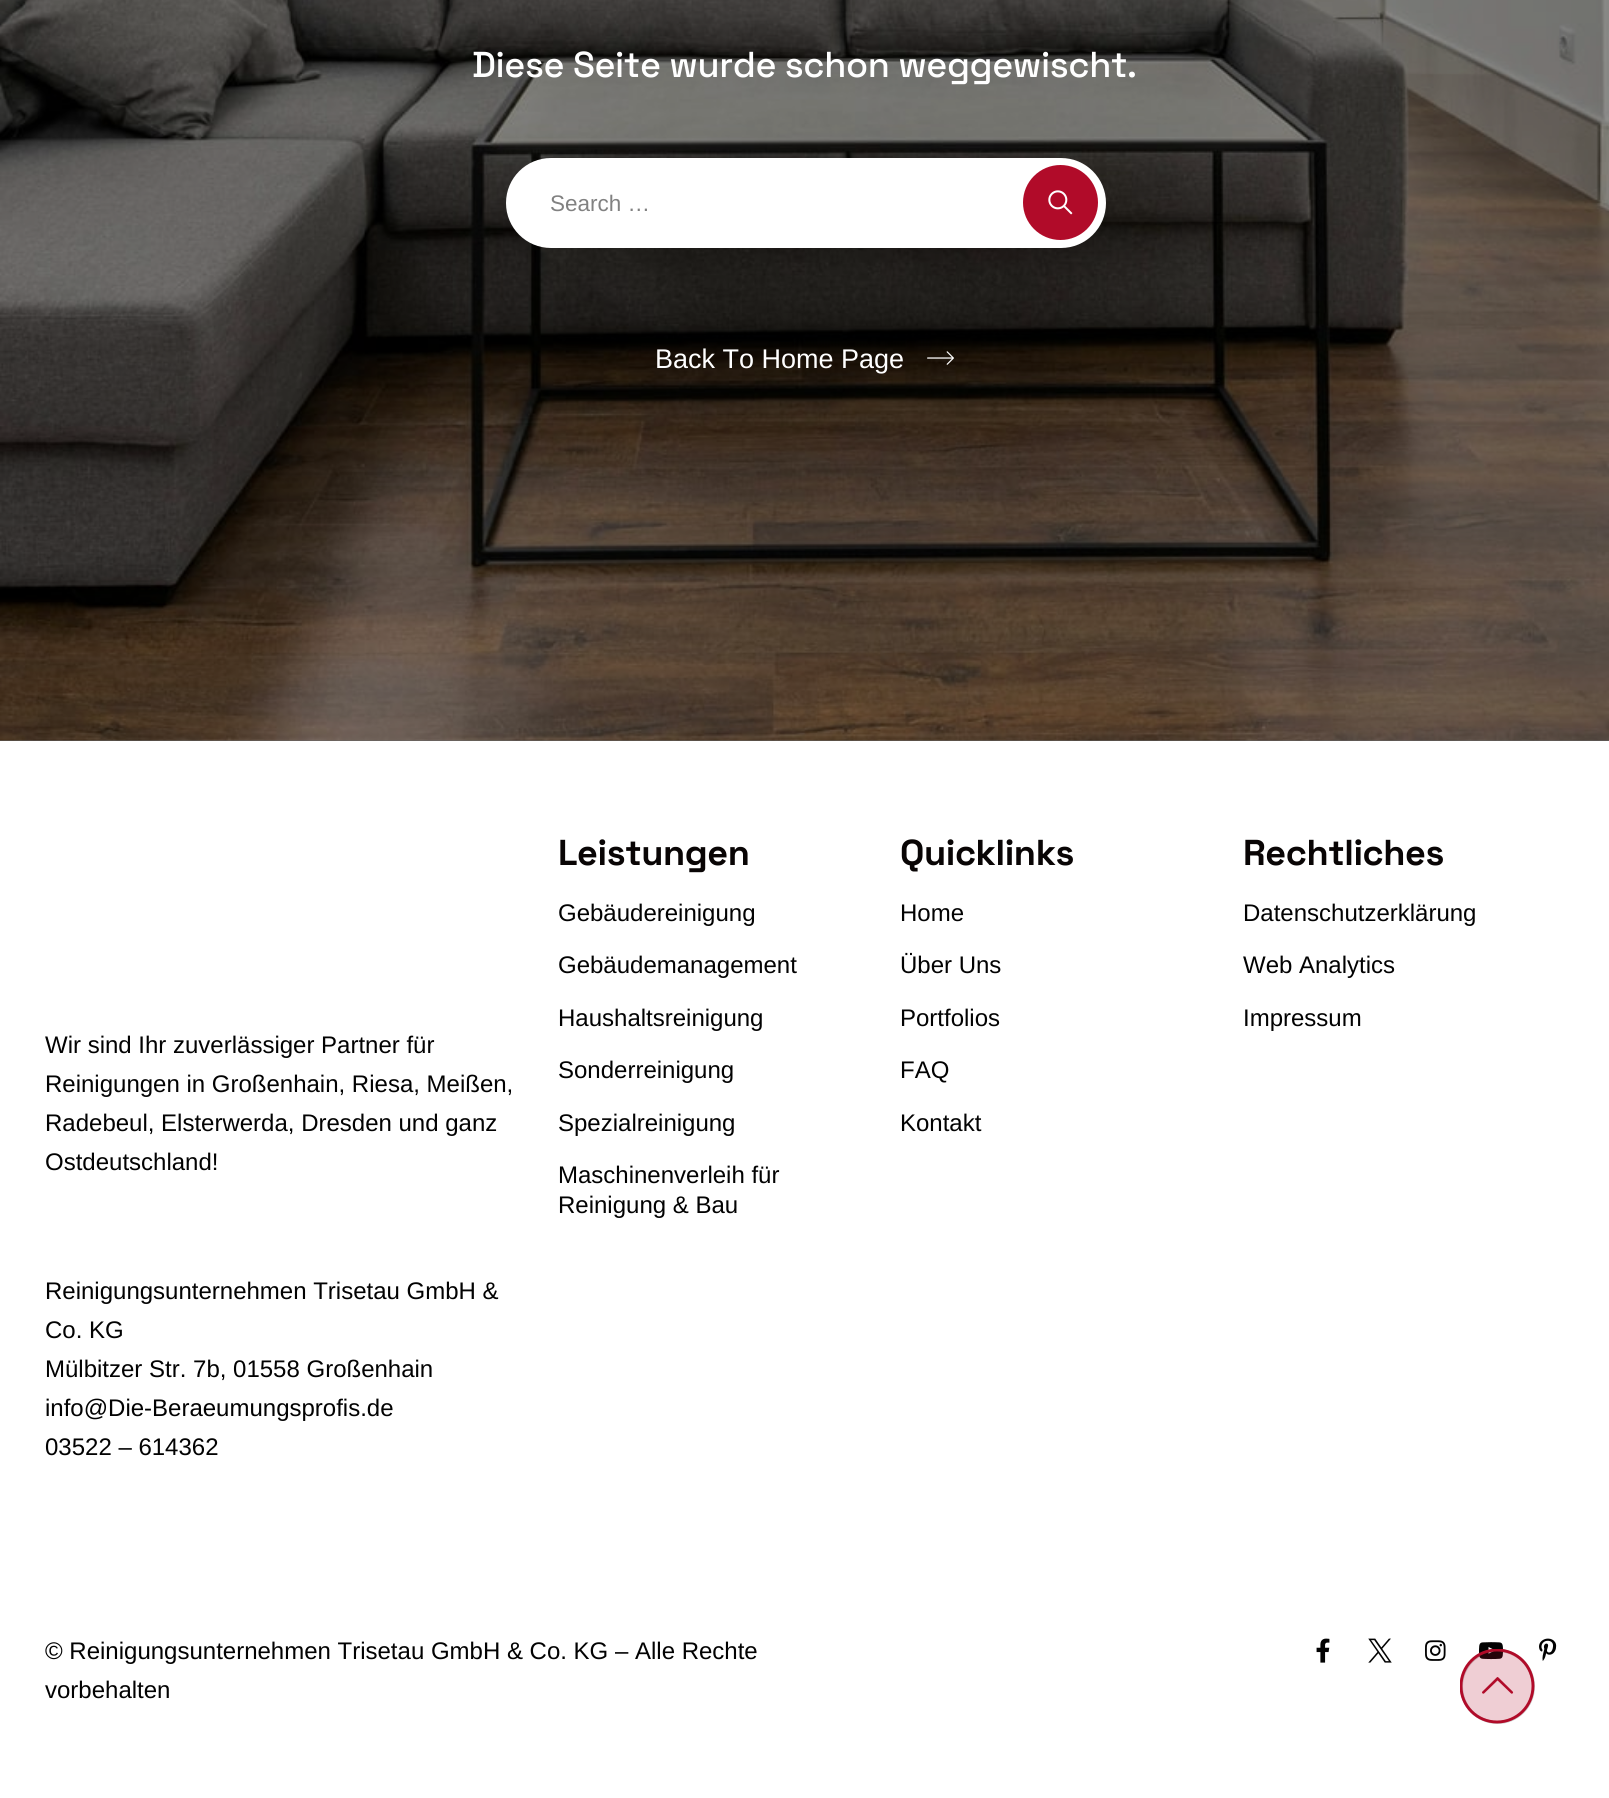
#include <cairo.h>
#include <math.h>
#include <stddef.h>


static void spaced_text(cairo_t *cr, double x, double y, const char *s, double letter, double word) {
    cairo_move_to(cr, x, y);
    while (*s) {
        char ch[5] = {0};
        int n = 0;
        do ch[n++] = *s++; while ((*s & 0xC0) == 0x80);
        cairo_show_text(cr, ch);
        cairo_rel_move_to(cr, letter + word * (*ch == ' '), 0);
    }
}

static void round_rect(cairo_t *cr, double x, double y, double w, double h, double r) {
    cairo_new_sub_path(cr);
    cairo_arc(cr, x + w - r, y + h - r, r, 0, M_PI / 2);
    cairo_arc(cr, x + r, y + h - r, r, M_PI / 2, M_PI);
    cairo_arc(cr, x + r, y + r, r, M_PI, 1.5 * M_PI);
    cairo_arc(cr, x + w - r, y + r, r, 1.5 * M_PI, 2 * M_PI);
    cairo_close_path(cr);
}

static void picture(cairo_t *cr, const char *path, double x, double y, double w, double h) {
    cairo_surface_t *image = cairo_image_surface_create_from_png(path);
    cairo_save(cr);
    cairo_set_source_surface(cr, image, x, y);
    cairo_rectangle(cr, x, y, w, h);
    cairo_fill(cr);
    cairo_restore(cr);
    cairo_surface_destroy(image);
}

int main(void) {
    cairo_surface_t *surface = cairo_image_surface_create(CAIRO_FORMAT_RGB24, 1609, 1798);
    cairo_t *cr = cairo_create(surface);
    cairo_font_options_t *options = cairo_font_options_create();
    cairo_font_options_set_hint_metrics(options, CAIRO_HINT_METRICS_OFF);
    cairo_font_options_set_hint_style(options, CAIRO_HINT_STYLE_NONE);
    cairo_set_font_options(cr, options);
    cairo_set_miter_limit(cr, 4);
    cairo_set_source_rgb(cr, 1, 1, 1);
    cairo_paint(cr);
    cairo_set_source_rgb(cr, 0.396, 0.396, 0.396);
    cairo_rectangle(cr, 0, 740, 1609, 1);
    cairo_fill(cr);
    picture(cr, "img1.png", 0, 0, 1609, 741);
    cairo_select_font_face(cr, "Space Grotesk Medium", CAIRO_FONT_SLANT_NORMAL, CAIRO_FONT_WEIGHT_NORMAL);
    cairo_set_font_size(cr, 36);
    cairo_set_source_rgb(cr, 1, 1, 1);
    spaced_text(cr, 472, 77, "Diese Seite wurde schon weggewischt.", -0.4, 0);
    round_rect(cr, 506, 158, 600, 90, 45);
    cairo_fill(cr);
    cairo_select_font_face(cr, "Liberation Sans", CAIRO_FONT_SLANT_NORMAL, CAIRO_FONT_WEIGHT_NORMAL);
    cairo_set_font_size(cr, 22.5);
    cairo_set_source_rgb(cr, 0.506, 0.506, 0.506);
    cairo_move_to(cr, 550, 211);
    cairo_show_text(cr, "Search …");
    cairo_set_source_rgb(cr, 0.694, 0.043, 0.161);
    cairo_new_path(cr);
    cairo_arc(cr, 1060.5, 202.5, 37.5, 0, 2 * M_PI);
    cairo_fill(cr);
    picture(cr, "img2.png", 1048, 190, 25, 25);
    cairo_set_font_size(cr, 27);
    cairo_set_source_rgb(cr, 1, 1, 1);
    cairo_move_to(cr, 655, 368);
    cairo_show_text(cr, "Back To Home Page");
    picture(cr, "img3.png", 927, 351, 27, 14);
    cairo_select_font_face(cr, "Space Grotesk", CAIRO_FONT_SLANT_NORMAL, CAIRO_FONT_WEIGHT_BOLD);
    cairo_set_font_size(cr, 36);
    cairo_set_source_rgb(cr, 0.039, 0.02, 0.02);
    spaced_text(cr, 558, 865, "Leistungen", -0.4, 0);
    cairo_select_font_face(cr, "Liberation Sans", CAIRO_FONT_SLANT_NORMAL, CAIRO_FONT_WEIGHT_NORMAL);
    cairo_set_font_size(cr, 24);
    cairo_set_source_rgb(cr, 0.008, 0.008, 0.008);
    cairo_move_to(cr, 558, 921);
    cairo_show_text(cr, "Gebäudereinigung");
    cairo_move_to(cr, 558, 973);
    cairo_show_text(cr, "Gebäudemanagement");
    cairo_move_to(cr, 558, 1026);
    cairo_show_text(cr, "Haushaltsreinigung");
    cairo_move_to(cr, 558, 1078);
    cairo_show_text(cr, "Sonderreinigung");
    cairo_move_to(cr, 558, 1131);
    cairo_show_text(cr, "Spezialreinigung");
    cairo_move_to(cr, 558, 1183);
    cairo_show_text(cr, "Maschinenverleih für");
    cairo_move_to(cr, 558, 1213);
    cairo_show_text(cr, "Reinigung & Bau");
    cairo_select_font_face(cr, "Space Grotesk", CAIRO_FONT_SLANT_NORMAL, CAIRO_FONT_WEIGHT_BOLD);
    cairo_set_font_size(cr, 36);
    cairo_set_source_rgb(cr, 0.039, 0.02, 0.02);
    spaced_text(cr, 900, 865, "Quicklinks", -0.4, 0);
    cairo_select_font_face(cr, "Liberation Sans", CAIRO_FONT_SLANT_NORMAL, CAIRO_FONT_WEIGHT_NORMAL);
    cairo_set_font_size(cr, 24);
    cairo_set_source_rgb(cr, 0.008, 0.008, 0.008);
    cairo_move_to(cr, 900, 921);
    cairo_show_text(cr, "Home");
    cairo_move_to(cr, 900, 973);
    cairo_show_text(cr, "Über Uns");
    cairo_move_to(cr, 900, 1026);
    cairo_show_text(cr, "Portfolios");
    cairo_move_to(cr, 900, 1078);
    cairo_show_text(cr, "FAQ");
    cairo_move_to(cr, 900, 1131);
    cairo_show_text(cr, "Kontakt");
    cairo_select_font_face(cr, "Space Grotesk", CAIRO_FONT_SLANT_NORMAL, CAIRO_FONT_WEIGHT_BOLD);
    cairo_set_font_size(cr, 36);
    cairo_set_source_rgb(cr, 0.039, 0.02, 0.02);
    spaced_text(cr, 1243, 865, "Rechtliches", -0.4, 0);
    cairo_select_font_face(cr, "Liberation Sans", CAIRO_FONT_SLANT_NORMAL, CAIRO_FONT_WEIGHT_NORMAL);
    cairo_set_font_size(cr, 24);
    cairo_set_source_rgb(cr, 0.008, 0.008, 0.008);
    cairo_move_to(cr, 1243, 921);
    cairo_show_text(cr, "Datenschutzerklärung");
    cairo_move_to(cr, 1243, 973);
    cairo_show_text(cr, "Web Analytics");
    cairo_move_to(cr, 1243, 1026);
    cairo_show_text(cr, "Impressum");
    cairo_move_to(cr, 45, 1053);
    cairo_show_text(cr, "Wir sind Ihr zuverlässiger Partner für");
    cairo_move_to(cr, 45, 1092);
    cairo_show_text(cr, "Reinigungen in Großenhain, Riesa, Meißen,");
    cairo_move_to(cr, 45, 1131);
    cairo_show_text(cr, "Radebeul, Elsterwerda, Dresden und ganz");
    cairo_move_to(cr, 45, 1170);
    cairo_show_text(cr, "Ostdeutschland!");
    cairo_move_to(cr, 45, 1299);
    cairo_show_text(cr, "Reinigungsunternehmen Trisetau GmbH &");
    cairo_move_to(cr, 45, 1338);
    cairo_show_text(cr, "Co. KG");
    cairo_move_to(cr, 45, 1377);
    cairo_show_text(cr, "Mülbitzer Str. 7b, 01558 Großenhain");
    cairo_move_to(cr, 45, 1416);
    cairo_show_text(cr, "info@Die-Beraeumungsprofis.de");
    cairo_move_to(cr, 45, 1455);
    cairo_show_text(cr, "03522 – 614362");
    cairo_move_to(cr, 45, 1659);
    cairo_show_text(cr, "© Reinigungsunternehmen Trisetau GmbH & Co. KG – Alle Rechte");
    cairo_move_to(cr, 45, 1698);
    cairo_show_text(cr, "vorbehalten");
    picture(cr, "img4.png", 1316, 1638, 14, 25);
    picture(cr, "img5.png", 1368, 1638, 24, 25);
    picture(cr, "img6.png", 1425, 1640, 21, 21);
    picture(cr, "img7.png", 1479, 1642, 24, 18);
    picture(cr, "img8.png", 1539, 1638, 18, 23);
    cairo_arc(cr, 1497.5, 1686.5, 36, 0, 2 * M_PI);
    cairo_set_source_rgba(cr, 0, 0, 0, 0.2);
    cairo_set_line_width(cr, 3);
    cairo_stroke(cr);
    cairo_set_source_rgba(cr, 0.694, 0.043, 0.161, 0.2);
    cairo_new_path(cr);
    cairo_move_to(cr, 1497, 1650);
    cairo_curve_to(cr, 1517, 1650, 1533, 1666, 1533, 1686);
    cairo_curve_to(cr, 1533, 1706, 1517, 1722, 1497, 1722);
    cairo_curve_to(cr, 1477, 1722, 1461, 1706, 1461, 1686);
    cairo_curve_to(cr, 1461, 1666, 1477, 1650, 1497, 1650);
    cairo_fill(cr);
    cairo_save(cr);
    cairo_rectangle(cr, 1460, 1649, 75, 75);
    cairo_clip(cr);
    cairo_new_path(cr);
    cairo_move_to(cr, 1497, 1650);
    cairo_curve_to(cr, 1517, 1650, 1533, 1666, 1533, 1686);
    cairo_curve_to(cr, 1533, 1706, 1517, 1722, 1497, 1722);
    cairo_curve_to(cr, 1477, 1722, 1461, 1706, 1461, 1686);
    cairo_curve_to(cr, 1461, 1666, 1477, 1650, 1497, 1650);
    cairo_set_source_rgb(cr, 0.694, 0.043, 0.161);
    cairo_set_line_width(cr, 2.9);
    cairo_stroke(cr);
    cairo_restore(cr);
    picture(cr, "img9.png", 1482, 1677, 32, 17);
    cairo_surface_write_to_png(surface, "page.png");
    cairo_font_options_destroy(options);
    cairo_destroy(cr);
    cairo_surface_destroy(surface);
    return 0;
}
